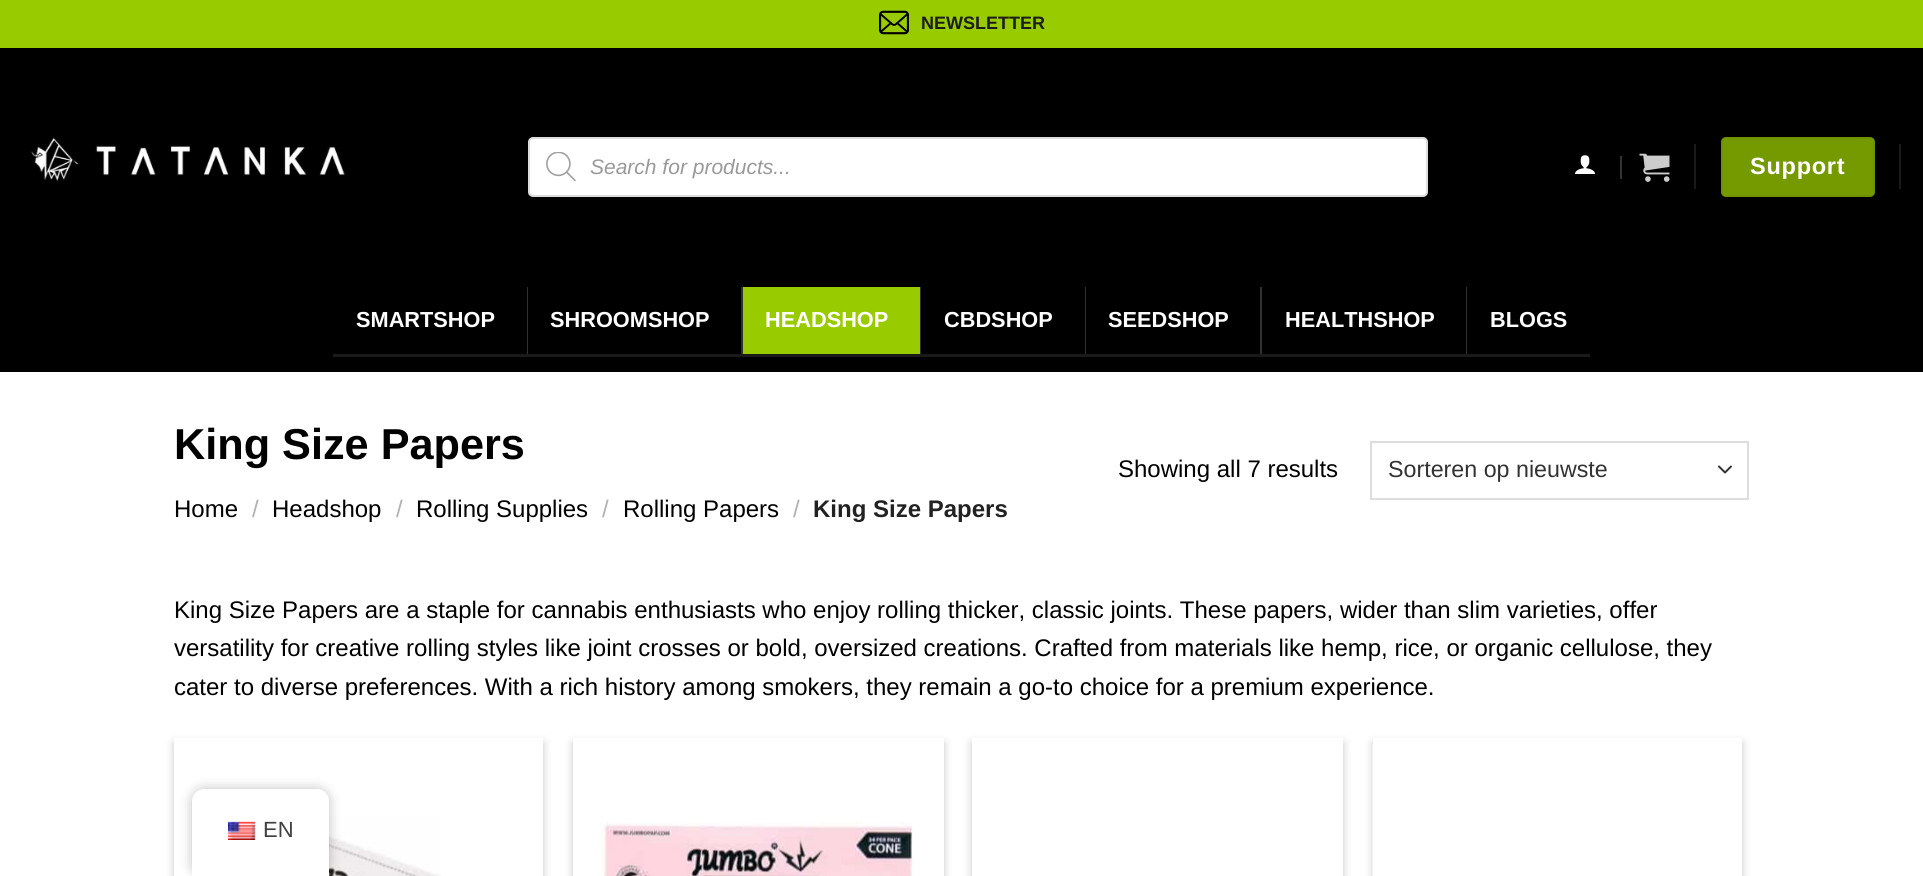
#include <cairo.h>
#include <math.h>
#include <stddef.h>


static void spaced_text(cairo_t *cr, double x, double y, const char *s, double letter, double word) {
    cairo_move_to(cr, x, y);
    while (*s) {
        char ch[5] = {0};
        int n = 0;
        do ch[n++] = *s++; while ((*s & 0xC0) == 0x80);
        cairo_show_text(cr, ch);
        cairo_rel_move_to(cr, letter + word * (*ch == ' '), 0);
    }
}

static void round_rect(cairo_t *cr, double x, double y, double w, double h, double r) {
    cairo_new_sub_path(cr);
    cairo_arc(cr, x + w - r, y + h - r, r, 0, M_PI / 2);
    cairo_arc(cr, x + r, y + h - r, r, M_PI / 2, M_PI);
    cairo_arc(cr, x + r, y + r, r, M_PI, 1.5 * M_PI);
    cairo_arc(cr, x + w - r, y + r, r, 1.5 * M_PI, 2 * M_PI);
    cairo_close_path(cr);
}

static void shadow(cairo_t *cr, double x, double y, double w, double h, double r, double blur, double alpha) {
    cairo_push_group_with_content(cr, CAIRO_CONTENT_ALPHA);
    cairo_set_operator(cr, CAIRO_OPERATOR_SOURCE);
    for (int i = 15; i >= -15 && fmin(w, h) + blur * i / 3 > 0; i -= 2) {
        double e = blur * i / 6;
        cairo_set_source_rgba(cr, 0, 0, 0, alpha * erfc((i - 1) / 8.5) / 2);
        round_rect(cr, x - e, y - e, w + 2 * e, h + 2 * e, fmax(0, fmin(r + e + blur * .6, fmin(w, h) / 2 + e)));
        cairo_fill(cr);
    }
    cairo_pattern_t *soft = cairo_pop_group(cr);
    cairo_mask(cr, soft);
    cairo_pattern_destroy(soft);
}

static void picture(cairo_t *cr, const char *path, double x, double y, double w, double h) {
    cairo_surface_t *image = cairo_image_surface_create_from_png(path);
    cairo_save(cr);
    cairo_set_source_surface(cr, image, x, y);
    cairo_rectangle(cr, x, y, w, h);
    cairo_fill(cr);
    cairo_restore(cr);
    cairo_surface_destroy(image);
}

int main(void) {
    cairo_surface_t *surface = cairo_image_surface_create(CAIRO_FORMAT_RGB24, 1923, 876);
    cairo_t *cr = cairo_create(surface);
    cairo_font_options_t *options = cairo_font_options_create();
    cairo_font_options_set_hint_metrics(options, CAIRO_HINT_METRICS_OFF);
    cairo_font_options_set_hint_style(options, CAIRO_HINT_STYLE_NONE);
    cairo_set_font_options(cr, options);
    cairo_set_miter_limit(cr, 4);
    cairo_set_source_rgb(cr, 1, 1, 1);
    cairo_paint(cr);
    cairo_set_source_rgb(cr, 0.6, 0.8, 0);
    cairo_rectangle(cr, 0, 0, 1923, 48);
    cairo_fill(cr);
    picture(cr, "img1.png", 879, 10, 30, 25);
    cairo_select_font_face(cr, "Liberation Sans", CAIRO_FONT_SLANT_NORMAL, CAIRO_FONT_WEIGHT_BOLD);
    cairo_set_font_size(cr, 18);
    cairo_set_source_rgb(cr, 0.11, 0.11, 0.11);
    cairo_move_to(cr, 921, 29);
    cairo_show_text(cr, "NEWSLETTER");
    cairo_set_source_rgb(cr, 0, 0, 0);
    cairo_rectangle(cr, 0, 48, 1923, 324);
    cairo_fill(cr);
    picture(cr, "img2.png", 30, 137, 316, 44);
    cairo_set_source_rgb(cr, 1, 1, 1);
    round_rect(cr, 529, 138, 898, 58, 4);
    cairo_fill_preserve(cr);
    cairo_set_source_rgb(cr, 0.867, 0.867, 0.867);
    cairo_stroke(cr);
    picture(cr, "img3.png", 546, 152, 30, 30);
    cairo_select_font_face(cr, "Liberation Sans", CAIRO_FONT_SLANT_ITALIC, CAIRO_FONT_WEIGHT_NORMAL);
    cairo_set_font_size(cr, 21);
    cairo_set_source_rgb(cr, 0.6, 0.6, 0.6);
    cairo_move_to(cr, 590, 174);
    cairo_show_text(cr, "Search for products...");
    picture(cr, "img4.png", 1575, 155, 21, 19);
    cairo_set_source_rgb(cr, 0.2, 0.2, 0.2);
    cairo_rectangle(cr, 1620, 156, 2, 23);
    cairo_fill(cr);
    picture(cr, "img5.png", 1639, 153, 31, 29);
    cairo_set_source_rgb(cr, 0.102, 0.102, 0.102);
    cairo_rectangle(cr, 1694, 144, 2, 45);
    cairo_fill(cr);
    cairo_set_source_rgb(cr, 0.455, 0.604, 0);
    round_rect(cr, 1721, 137, 154, 60, 5);
    cairo_fill(cr);
    cairo_rectangle(cr, 1722, 138, 152, 58);
    cairo_set_source_rgba(cr, 0, 0, 0, 0.05);
    cairo_stroke(cr);
    cairo_select_font_face(cr, "Liberation Sans", CAIRO_FONT_SLANT_NORMAL, CAIRO_FONT_WEIGHT_BOLD);
    cairo_set_font_size(cr, 23.5);
    cairo_set_source_rgb(cr, 1, 1, 1);
    spaced_text(cr, 1750, 174, "Support", 0.75, 0);
    cairo_set_source_rgb(cr, 0.102, 0.102, 0.102);
    cairo_rectangle(cr, 1899, 144, 2, 45);
    cairo_fill(cr);
    cairo_rectangle(cr, 333, 354, 1257, 3);
    cairo_fill(cr);
    cairo_set_source_rgb(cr, 0.192, 0.192, 0.192);
    cairo_rectangle(cr, 1466, 287, 1, 67);
    cairo_fill(cr);
    cairo_rectangle(cr, 1085, 287, 1, 67);
    cairo_fill(cr);
    cairo_rectangle(cr, 920, 287, 1, 67);
    cairo_fill(cr);
    cairo_rectangle(cr, 527, 287, 1, 67);
    cairo_fill(cr);
    cairo_set_font_size(cr, 21.75);
    cairo_set_source_rgb(cr, 1, 1, 1);
    cairo_move_to(cr, 356, 327);
    cairo_show_text(cr, "SMARTSHOP");
    cairo_move_to(cr, 550, 327);
    cairo_show_text(cr, "SHROOMSHOP");
    cairo_set_source_rgb(cr, 0.192, 0.192, 0.192);
    cairo_rectangle(cr, 741, 287, 2, 67);
    cairo_fill(cr);
    cairo_set_source_rgb(cr, 0.6, 0.8, 0);
    cairo_rectangle(cr, 743, 287, 177, 67);
    cairo_fill(cr);
    cairo_set_source_rgb(cr, 1, 1, 1);
    cairo_move_to(cr, 765, 327);
    cairo_show_text(cr, "HEADSHOP");
    cairo_move_to(cr, 944, 327);
    cairo_show_text(cr, "CBDSHOP");
    cairo_move_to(cr, 1108, 327);
    cairo_show_text(cr, "SEEDSHOP");
    cairo_set_source_rgb(cr, 0.192, 0.192, 0.192);
    cairo_rectangle(cr, 1260, 287, 2, 67);
    cairo_fill(cr);
    cairo_set_source_rgb(cr, 1, 1, 1);
    cairo_move_to(cr, 1285, 327);
    cairo_show_text(cr, "HEALTHSHOP");
    cairo_move_to(cr, 1490, 327);
    cairo_show_text(cr, "BLOGS");
    cairo_set_font_size(cr, 43.25);
    cairo_set_source_rgb(cr, 0, 0, 0);
    cairo_move_to(cr, 174, 459);
    cairo_show_text(cr, "King Size Papers");
    cairo_select_font_face(cr, "Liberation Sans", CAIRO_FONT_SLANT_NORMAL, CAIRO_FONT_WEIGHT_NORMAL);
    cairo_set_font_size(cr, 24);
    cairo_move_to(cr, 174, 517);
    cairo_show_text(cr, "Home");
    cairo_set_source_rgb(cr, 0.698, 0.698, 0.698);
    cairo_move_to(cr, 252, 517);
    cairo_show_text(cr, "/");
    cairo_set_source_rgb(cr, 0, 0, 0);
    cairo_move_to(cr, 272, 517);
    cairo_show_text(cr, "Headshop");
    cairo_set_source_rgb(cr, 0.698, 0.698, 0.698);
    cairo_move_to(cr, 396, 517);
    cairo_show_text(cr, "/");
    cairo_set_source_rgb(cr, 0, 0, 0);
    cairo_move_to(cr, 416, 517);
    cairo_show_text(cr, "Rolling Supplies");
    cairo_set_source_rgb(cr, 0.698, 0.698, 0.698);
    cairo_move_to(cr, 602, 517);
    cairo_show_text(cr, "/");
    cairo_set_source_rgb(cr, 0, 0, 0);
    cairo_move_to(cr, 623, 517);
    cairo_show_text(cr, "Rolling Papers");
    cairo_set_source_rgb(cr, 0.698, 0.698, 0.698);
    cairo_move_to(cr, 793, 517);
    cairo_show_text(cr, "/");
    cairo_select_font_face(cr, "Liberation Sans", CAIRO_FONT_SLANT_NORMAL, CAIRO_FONT_WEIGHT_BOLD);
    cairo_set_source_rgb(cr, 0.133, 0.133, 0.133);
    cairo_move_to(cr, 813, 517);
    cairo_show_text(cr, "King Size Papers");
    cairo_select_font_face(cr, "Liberation Sans", CAIRO_FONT_SLANT_NORMAL, CAIRO_FONT_WEIGHT_NORMAL);
    cairo_set_source_rgb(cr, 0, 0, 0);
    cairo_move_to(cr, 1118, 477);
    cairo_show_text(cr, "Showing all 7 results");
    cairo_new_path(cr);
    cairo_move_to(cr, 1719, 466.5);
    cairo_line_to(cr, 1725, 472.5);
    cairo_line_to(cr, 1731, 466.5);
    cairo_set_source_rgb(cr, 0.2, 0.2, 0.2);
    cairo_set_line_cap(cr, CAIRO_LINE_CAP_ROUND);
    cairo_set_line_join(cr, CAIRO_LINE_JOIN_ROUND);
    cairo_stroke(cr);
    cairo_rectangle(cr, 1371, 442, 377, 57);
    cairo_set_source_rgb(cr, 0.867, 0.867, 0.867);
    cairo_set_line_cap(cr, CAIRO_LINE_CAP_BUTT);
    cairo_set_line_join(cr, CAIRO_LINE_JOIN_MITER);
    cairo_stroke(cr);
    cairo_set_font_size(cr, 23.25);
    cairo_set_source_rgb(cr, 0.2, 0.2, 0.2);
    cairo_move_to(cr, 1388, 477);
    cairo_show_text(cr, "Sorteren op nieuwste");
    cairo_set_font_size(cr, 24);
    cairo_set_source_rgb(cr, 0, 0, 0);
    cairo_move_to(cr, 174, 618);
    cairo_show_text(cr, "King Size Papers are a staple for cannabis enthusiasts who enjoy rolling thicker, classic joints. These papers, wider than slim varieties, offer");
    cairo_move_to(cr, 174, 656);
    cairo_show_text(cr, "versatility for creative rolling styles like joint crosses or bold, oversized creations. Crafted from materials like hemp, rice, or organic cellulose, they");
    cairo_move_to(cr, 174, 695);
    cairo_show_text(cr, "cater to diverse preferences. With a rich history among smokers, they remain a go-to choice for a premium experience.");
    cairo_save(cr);
    cairo_set_fill_rule(cr, CAIRO_FILL_RULE_EVEN_ODD);
    cairo_new_path(cr);
    cairo_move_to(cr, 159, 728);
    cairo_line_to(cr, 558, 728);
    cairo_line_to(cr, 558, 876);
    cairo_line_to(cr, 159, 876);
    cairo_close_path(cr);
    cairo_move_to(cr, 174, 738);
    cairo_line_to(cr, 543, 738);
    cairo_line_to(cr, 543, 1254);
    cairo_line_to(cr, 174, 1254);
    cairo_close_path(cr);
    cairo_clip(cr);
    cairo_set_source_rgb(cr, 0, 0, 0);
    shadow(cr, 174, 743, 369, 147, 0, 4.5, 0.23);
    cairo_restore(cr);
    picture(cr, "img6.png", 329, 816, 113, 60);
    cairo_set_source_rgb(cr, 0, 0, 0);
    shadow(cr, 573, 743, 371, 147, 0, 4.5, 0.23);
    cairo_set_source_rgb(cr, 1, 1, 1);
    cairo_rectangle(cr, 573, 738, 371, 138);
    cairo_fill(cr);
    picture(cr, "img7.png", 601, 822, 312, 54);
    cairo_set_source_rgb(cr, 0, 0, 0);
    shadow(cr, 972, 743, 371, 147, 0, 4.5, 0.23);
    cairo_set_source_rgb(cr, 1, 1, 1);
    cairo_rectangle(cr, 972, 738, 371, 138);
    cairo_fill(cr);
    cairo_set_source_rgb(cr, 0, 0, 0);
    shadow(cr, 1373, 743, 369, 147, 0, 4.5, 0.23);
    cairo_set_source_rgb(cr, 1, 1, 1);
    cairo_rectangle(cr, 1373, 738, 369, 138);
    cairo_fill(cr);
    cairo_set_source_rgba(cr, 1, 1, 1, 0.5);
    cairo_rectangle(cr, 1372, 744, 1, 132);
    cairo_fill(cr);
    cairo_set_source_rgb(cr, 0, 0, 0);
    shadow(cr, 192, 789, 137, 87, 12, 6, 0.25);
    cairo_set_source_rgb(cr, 1, 1, 1);
    cairo_new_path(cr);
    cairo_move_to(cr, 204, 789);
    cairo_line_to(cr, 317, 789);
    cairo_curve_to(cr, 323.5, 789, 329, 794.5, 329, 801);
    cairo_line_to(cr, 329, 876);
    cairo_line_to(cr, 192, 876);
    cairo_line_to(cr, 192, 801);
    cairo_curve_to(cr, 192, 794.5, 197.5, 789, 204, 789);
    cairo_close_path(cr);
    cairo_fill(cr);
    picture(cr, "img8.png", 228, 821, 28, 19);
    cairo_set_font_size(cr, 22);
    cairo_set_source_rgb(cr, 0.251, 0.251, 0.251);
    cairo_move_to(cr, 263, 837);
    cairo_show_text(cr, "EN");
    cairo_surface_write_to_png(surface, "page.png");
    cairo_font_options_destroy(options);
    cairo_destroy(cr);
    cairo_surface_destroy(surface);
    return 0;
}
